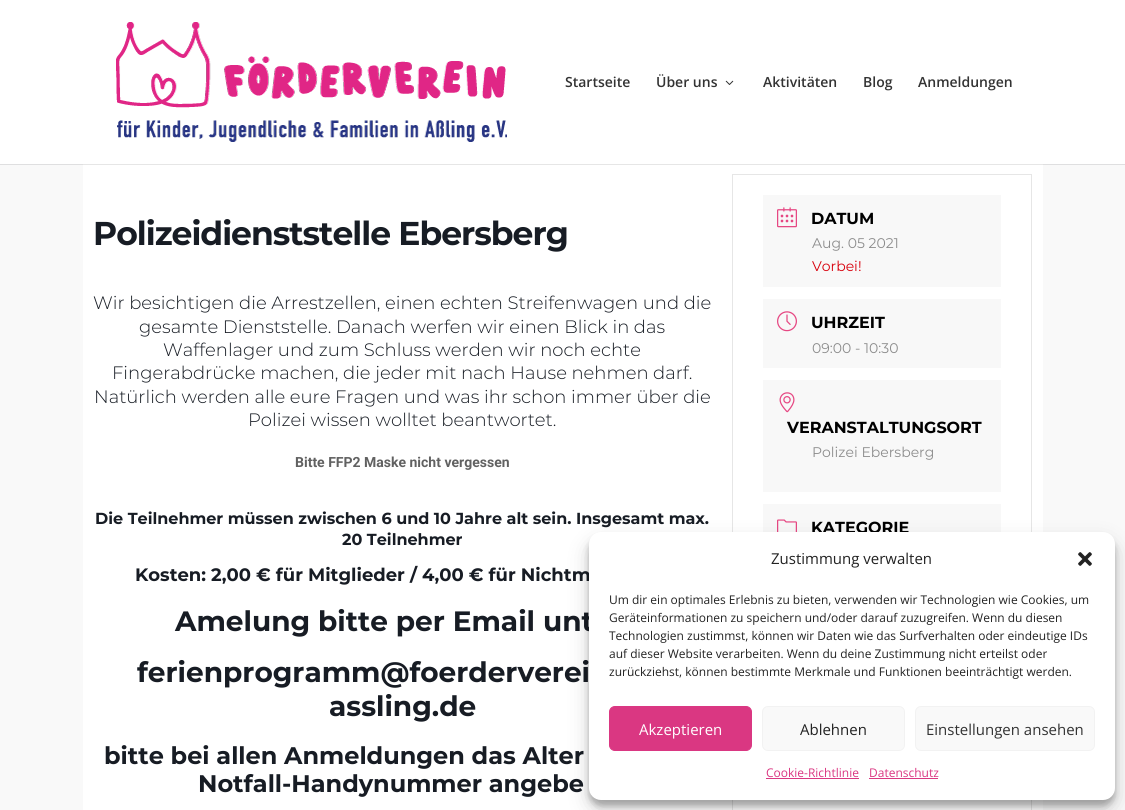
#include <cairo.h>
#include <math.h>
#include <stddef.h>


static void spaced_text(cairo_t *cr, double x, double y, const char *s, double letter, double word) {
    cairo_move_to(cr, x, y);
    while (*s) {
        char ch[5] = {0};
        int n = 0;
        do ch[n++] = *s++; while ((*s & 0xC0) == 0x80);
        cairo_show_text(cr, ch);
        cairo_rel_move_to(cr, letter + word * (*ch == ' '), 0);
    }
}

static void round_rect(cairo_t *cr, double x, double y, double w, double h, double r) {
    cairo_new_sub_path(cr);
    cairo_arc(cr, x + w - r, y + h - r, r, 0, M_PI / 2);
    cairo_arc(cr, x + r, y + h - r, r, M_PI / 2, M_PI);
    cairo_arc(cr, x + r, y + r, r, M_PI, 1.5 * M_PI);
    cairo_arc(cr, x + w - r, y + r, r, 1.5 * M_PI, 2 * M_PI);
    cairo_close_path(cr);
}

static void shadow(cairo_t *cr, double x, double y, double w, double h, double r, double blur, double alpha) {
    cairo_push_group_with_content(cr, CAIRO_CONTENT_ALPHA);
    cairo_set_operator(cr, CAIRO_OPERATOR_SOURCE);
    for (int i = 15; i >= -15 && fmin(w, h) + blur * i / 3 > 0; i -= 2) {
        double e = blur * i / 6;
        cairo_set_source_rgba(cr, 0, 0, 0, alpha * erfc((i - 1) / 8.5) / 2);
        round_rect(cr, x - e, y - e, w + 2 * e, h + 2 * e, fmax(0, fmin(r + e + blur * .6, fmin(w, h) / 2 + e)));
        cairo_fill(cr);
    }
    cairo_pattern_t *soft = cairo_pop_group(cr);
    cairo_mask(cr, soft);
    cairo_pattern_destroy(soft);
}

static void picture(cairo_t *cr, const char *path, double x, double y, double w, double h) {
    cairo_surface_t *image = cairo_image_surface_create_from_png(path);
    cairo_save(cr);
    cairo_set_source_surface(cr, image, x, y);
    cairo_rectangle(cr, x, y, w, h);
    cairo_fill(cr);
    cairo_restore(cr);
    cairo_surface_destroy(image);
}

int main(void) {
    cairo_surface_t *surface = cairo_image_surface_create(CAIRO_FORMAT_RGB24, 1125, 810);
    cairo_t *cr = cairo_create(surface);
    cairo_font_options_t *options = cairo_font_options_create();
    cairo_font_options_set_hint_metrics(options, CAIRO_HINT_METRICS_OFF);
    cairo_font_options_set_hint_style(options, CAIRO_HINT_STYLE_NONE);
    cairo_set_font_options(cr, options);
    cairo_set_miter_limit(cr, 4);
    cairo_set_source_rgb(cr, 0.973, 0.973, 0.976);
    cairo_paint(cr);
    cairo_set_source_rgb(cr, 0.875, 0.875, 0.878);
    cairo_rectangle(cr, 0, 164, 1125, 1);
    cairo_fill(cr);
    cairo_set_source_rgb(cr, 1, 1, 1);
    cairo_rectangle(cr, 0, 0, 1125, 164);
    cairo_fill(cr);
    picture(cr, "img1.png", 116, 22, 391, 120);
    cairo_select_font_face(cr, "Open Sans SemiBold", CAIRO_FONT_SLANT_NORMAL, CAIRO_FONT_WEIGHT_NORMAL);
    cairo_set_font_size(cr, 14);
    cairo_set_source_rgb(cr, 0.2, 0.2, 0.2);
    cairo_move_to(cr, 565, 87);
    cairo_show_text(cr, "Startseite");
    cairo_move_to(cr, 656, 87);
    cairo_show_text(cr, "Über uns");
    picture(cr, "img2.png", 725, 80, 9, 5);
    cairo_move_to(cr, 763, 87);
    cairo_show_text(cr, "Aktivitäten");
    cairo_move_to(cr, 863, 87);
    cairo_show_text(cr, "Blog");
    cairo_move_to(cr, 918, 87);
    cairo_show_text(cr, "Anmeldungen");
    cairo_set_source_rgb(cr, 1, 1, 1);
    cairo_rectangle(cr, 83, 165, 960, 645);
    cairo_fill(cr);
    cairo_set_source_rgb(cr, 0.902, 0.902, 0.902);
    cairo_rectangle(cr, 83, 164, 960, 1);
    cairo_fill(cr);
    cairo_select_font_face(cr, "Montserrat", CAIRO_FONT_SLANT_NORMAL, CAIRO_FONT_WEIGHT_BOLD);
    cairo_set_font_size(cr, 33);
    cairo_set_source_rgb(cr, 0.09, 0.11, 0.141);
    spaced_text(cr, 93, 245, "Polizeidienststelle Ebersberg", -1, 0);
    cairo_select_font_face(cr, "Montserrat Light", CAIRO_FONT_SLANT_NORMAL, CAIRO_FONT_WEIGHT_NORMAL);
    cairo_set_font_size(cr, 18);
    cairo_move_to(cr, 93, 309);
    cairo_show_text(cr, "Wir besichtigen die Arrestzellen, einen echten Streifenwagen und die");
    cairo_move_to(cr, 139, 333);
    cairo_show_text(cr, "gesamte Dienststelle. Danach werfen wir einen Blick in das");
    cairo_move_to(cr, 163, 356);
    cairo_show_text(cr, "Waffenlager und zum Schluss werden wir noch echte");
    cairo_move_to(cr, 112, 379);
    cairo_show_text(cr, "Fingerabdrücke machen, die jeder mit nach Hause nehmen darf.");
    cairo_move_to(cr, 94, 403);
    cairo_show_text(cr, "Natürlich werden alle eure Fragen und was ihr schon immer über die");
    cairo_move_to(cr, 248, 426);
    cairo_show_text(cr, "Polizei wissen wolltet beantwortet.");
    cairo_select_font_face(cr, "Roboto", CAIRO_FONT_SLANT_NORMAL, CAIRO_FONT_WEIGHT_BOLD);
    cairo_set_font_size(cr, 14);
    cairo_set_source_rgb(cr, 0.38, 0.38, 0.38);
    cairo_move_to(cr, 295, 467);
    cairo_show_text(cr, "Bitte FFP2 Maske nicht vergessen");
    cairo_select_font_face(cr, "Montserrat", CAIRO_FONT_SLANT_NORMAL, CAIRO_FONT_WEIGHT_BOLD);
    cairo_set_font_size(cr, 16);
    cairo_set_source_rgb(cr, 0.09, 0.11, 0.141);
    cairo_move_to(cr, 95, 524);
    cairo_show_text(cr, "Die Teilnehmer müssen zwischen 6 und 10 Jahre alt sein. Insgesamt max.");
    cairo_move_to(cr, 342, 545);
    cairo_show_text(cr, "20 Teilnehmer");
    cairo_set_font_size(cr, 18);
    cairo_move_to(cr, 135, 581);
    cairo_show_text(cr, "Kosten: 2,00 € für Mitglieder / 4,00 € für Nichtm");
    cairo_set_font_size(cr, 28);
    cairo_move_to(cr, 175, 631);
    cairo_show_text(cr, "Amelung bitte per Email unt");
    cairo_move_to(cr, 137, 682);
    cairo_show_text(cr, "ferienprogramm@foerderverei");
    cairo_move_to(cr, 329, 716);
    cairo_show_text(cr, "assling.de");
    cairo_set_font_size(cr, 24);
    cairo_move_to(cr, 104, 764);
    cairo_show_text(cr, "bitte bei allen Anmeldungen das Alter");
    cairo_move_to(cr, 198, 792);
    cairo_show_text(cr, "Notfall-Handynummer angebe");
    cairo_rectangle(cr, 732.5, 174.5, 299, 557);
    cairo_set_source_rgb(cr, 0.902, 0.902, 0.902);
    cairo_set_line_width(cr, 1);
    cairo_stroke(cr);
    cairo_set_source_rgb(cr, 0.969, 0.969, 0.969);
    cairo_rectangle(cr, 763, 195, 238, 92);
    cairo_fill(cr);
    picture(cr, "img3.png", 777, 207, 20, 21);
    cairo_set_font_size(cr, 16);
    cairo_set_source_rgb(cr, 0, 0, 0);
    cairo_move_to(cr, 811, 224);
    cairo_show_text(cr, "DATUM");
    cairo_select_font_face(cr, "Montserrat", CAIRO_FONT_SLANT_NORMAL, CAIRO_FONT_WEIGHT_NORMAL);
    cairo_set_font_size(cr, 14);
    cairo_set_source_rgb(cr, 0.553, 0.553, 0.553);
    cairo_move_to(cr, 812, 248);
    cairo_show_text(cr, "Aug. 05 2021");
    cairo_set_source_rgb(cr, 0.847, 0, 0.047);
    cairo_move_to(cr, 812, 271);
    cairo_show_text(cr, "Vorbei!");
    cairo_set_source_rgb(cr, 0.969, 0.969, 0.969);
    cairo_rectangle(cr, 763, 299, 238, 69);
    cairo_fill(cr);
    picture(cr, "img4.png", 777, 311, 20, 21);
    cairo_select_font_face(cr, "Montserrat", CAIRO_FONT_SLANT_NORMAL, CAIRO_FONT_WEIGHT_BOLD);
    cairo_set_font_size(cr, 16);
    cairo_set_source_rgb(cr, 0, 0, 0);
    cairo_move_to(cr, 811, 328);
    cairo_show_text(cr, "UHRZEIT");
    cairo_select_font_face(cr, "Montserrat", CAIRO_FONT_SLANT_NORMAL, CAIRO_FONT_WEIGHT_NORMAL);
    cairo_set_font_size(cr, 14);
    cairo_set_source_rgb(cr, 0.553, 0.553, 0.553);
    cairo_move_to(cr, 812, 353);
    cairo_show_text(cr, "09:00 - 10:30");
    cairo_set_source_rgb(cr, 0.969, 0.969, 0.969);
    cairo_rectangle(cr, 763, 380, 238, 112);
    cairo_fill(cr);
    picture(cr, "img5.png", 779, 392, 16, 21);
    cairo_select_font_face(cr, "Montserrat", CAIRO_FONT_SLANT_NORMAL, CAIRO_FONT_WEIGHT_BOLD);
    cairo_set_font_size(cr, 16);
    cairo_set_source_rgb(cr, 0, 0, 0);
    cairo_move_to(cr, 787, 433);
    cairo_show_text(cr, "VERANSTALTUNGSORT");
    cairo_select_font_face(cr, "Montserrat", CAIRO_FONT_SLANT_NORMAL, CAIRO_FONT_WEIGHT_NORMAL);
    cairo_set_font_size(cr, 14);
    cairo_set_source_rgb(cr, 0.553, 0.553, 0.553);
    cairo_move_to(cr, 812, 457);
    cairo_show_text(cr, "Polizei Ebersberg");
    cairo_set_source_rgb(cr, 0.969, 0.969, 0.969);
    cairo_rectangle(cr, 763, 504, 238, 28);
    cairo_fill(cr);
    picture(cr, "img6.png", 777, 519, 20, 13);
    cairo_select_font_face(cr, "Montserrat", CAIRO_FONT_SLANT_NORMAL, CAIRO_FONT_WEIGHT_BOLD);
    cairo_set_font_size(cr, 16);
    cairo_set_source_rgb(cr, 0, 0, 0);
    cairo_move_to(cr, 811, 533);
    cairo_show_text(cr, "KATEGORIE");
    cairo_rectangle(cr, 732.5, 762.5, 299, 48);
    cairo_set_source_rgb(cr, 0.902, 0.902, 0.902);
    cairo_stroke(cr);
    cairo_set_source_rgb(cr, 0, 0, 0);
    shadow(cr, 589, 538, 526, 268, 12, 3, 0.23);
    shadow(cr, 589, 542, 526, 268, 12, 10, 0.19);
    cairo_set_source_rgb(cr, 1, 1, 1);
    round_rect(cr, 589, 532, 526, 268, 12);
    cairo_fill(cr);
    cairo_select_font_face(cr, "Open Sans", CAIRO_FONT_SLANT_NORMAL, CAIRO_FONT_WEIGHT_NORMAL);
    cairo_set_font_size(cr, 15);
    cairo_set_source_rgb(cr, 0.133, 0.133, 0.133);
    cairo_move_to(cr, 771, 564);
    cairo_show_text(cr, "Zustimmung verwalten");
    picture(cr, "img7.png", 1078, 552, 14, 14);
    cairo_set_font_size(cr, 12);
    cairo_move_to(cr, 609, 604);
    cairo_show_text(cr, "Um dir ein optimales Erlebnis zu bieten, verwenden wir Technologien wie Cookies, um");
    cairo_move_to(cr, 609, 622);
    cairo_show_text(cr, "Geräteinformationen zu speichern und/oder darauf zuzugreifen. Wenn du diesen");
    cairo_move_to(cr, 609, 640);
    cairo_show_text(cr, "Technologien zustimmst, können wir Daten wie das Surfverhalten oder eindeutige IDs");
    cairo_move_to(cr, 609, 658);
    cairo_show_text(cr, "auf dieser Website verarbeiten. Wenn du deine Zustimmung nicht erteilst oder");
    cairo_move_to(cr, 609, 676);
    cairo_show_text(cr, "zurückziehst, können bestimmte Merkmale und Funktionen beeinträchtigt werden.");
    cairo_set_source_rgb(cr, 0.855, 0.216, 0.51);
    round_rect(cr, 609.5, 706.5, 142, 44, 5.5);
    cairo_fill_preserve(cr);
    cairo_stroke(cr);
    cairo_set_font_size(cr, 15);
    cairo_set_source_rgb(cr, 1, 1, 1);
    cairo_move_to(cr, 639, 735);
    cairo_show_text(cr, "Akzeptieren");
    cairo_set_source_rgb(cr, 0.976, 0.976, 0.976);
    round_rect(cr, 762.5, 706.5, 142, 44, 5.5);
    cairo_fill_preserve(cr);
    cairo_set_source_rgb(cr, 0.949, 0.949, 0.949);
    cairo_stroke(cr);
    cairo_set_source_rgb(cr, 0.133, 0.133, 0.133);
    cairo_move_to(cr, 800, 735);
    cairo_show_text(cr, "Ablehnen");
    cairo_set_source_rgb(cr, 0.976, 0.976, 0.976);
    round_rect(cr, 915.5, 706.5, 179, 44, 5.5);
    cairo_fill_preserve(cr);
    cairo_set_source_rgb(cr, 0.949, 0.949, 0.949);
    cairo_stroke(cr);
    cairo_set_source_rgb(cr, 0.2, 0.2, 0.2);
    cairo_move_to(cr, 926, 735);
    cairo_show_text(cr, "Einstellungen ansehen");
    cairo_set_font_size(cr, 12);
    cairo_set_source_rgb(cr, 0.855, 0.216, 0.51);
    cairo_move_to(cr, 766, 777);
    cairo_show_text(cr, "Cookie-Richtlinie");
    cairo_rectangle(cr, 766, 778, 93, 1);
    cairo_fill(cr);
    cairo_move_to(cr, 869, 777);
    cairo_show_text(cr, "Datenschutz");
    cairo_rectangle(cr, 869, 778, 69, 1);
    cairo_fill(cr);
    cairo_surface_write_to_png(surface, "page.png");
    cairo_font_options_destroy(options);
    cairo_destroy(cr);
    cairo_surface_destroy(surface);
    return 0;
}
